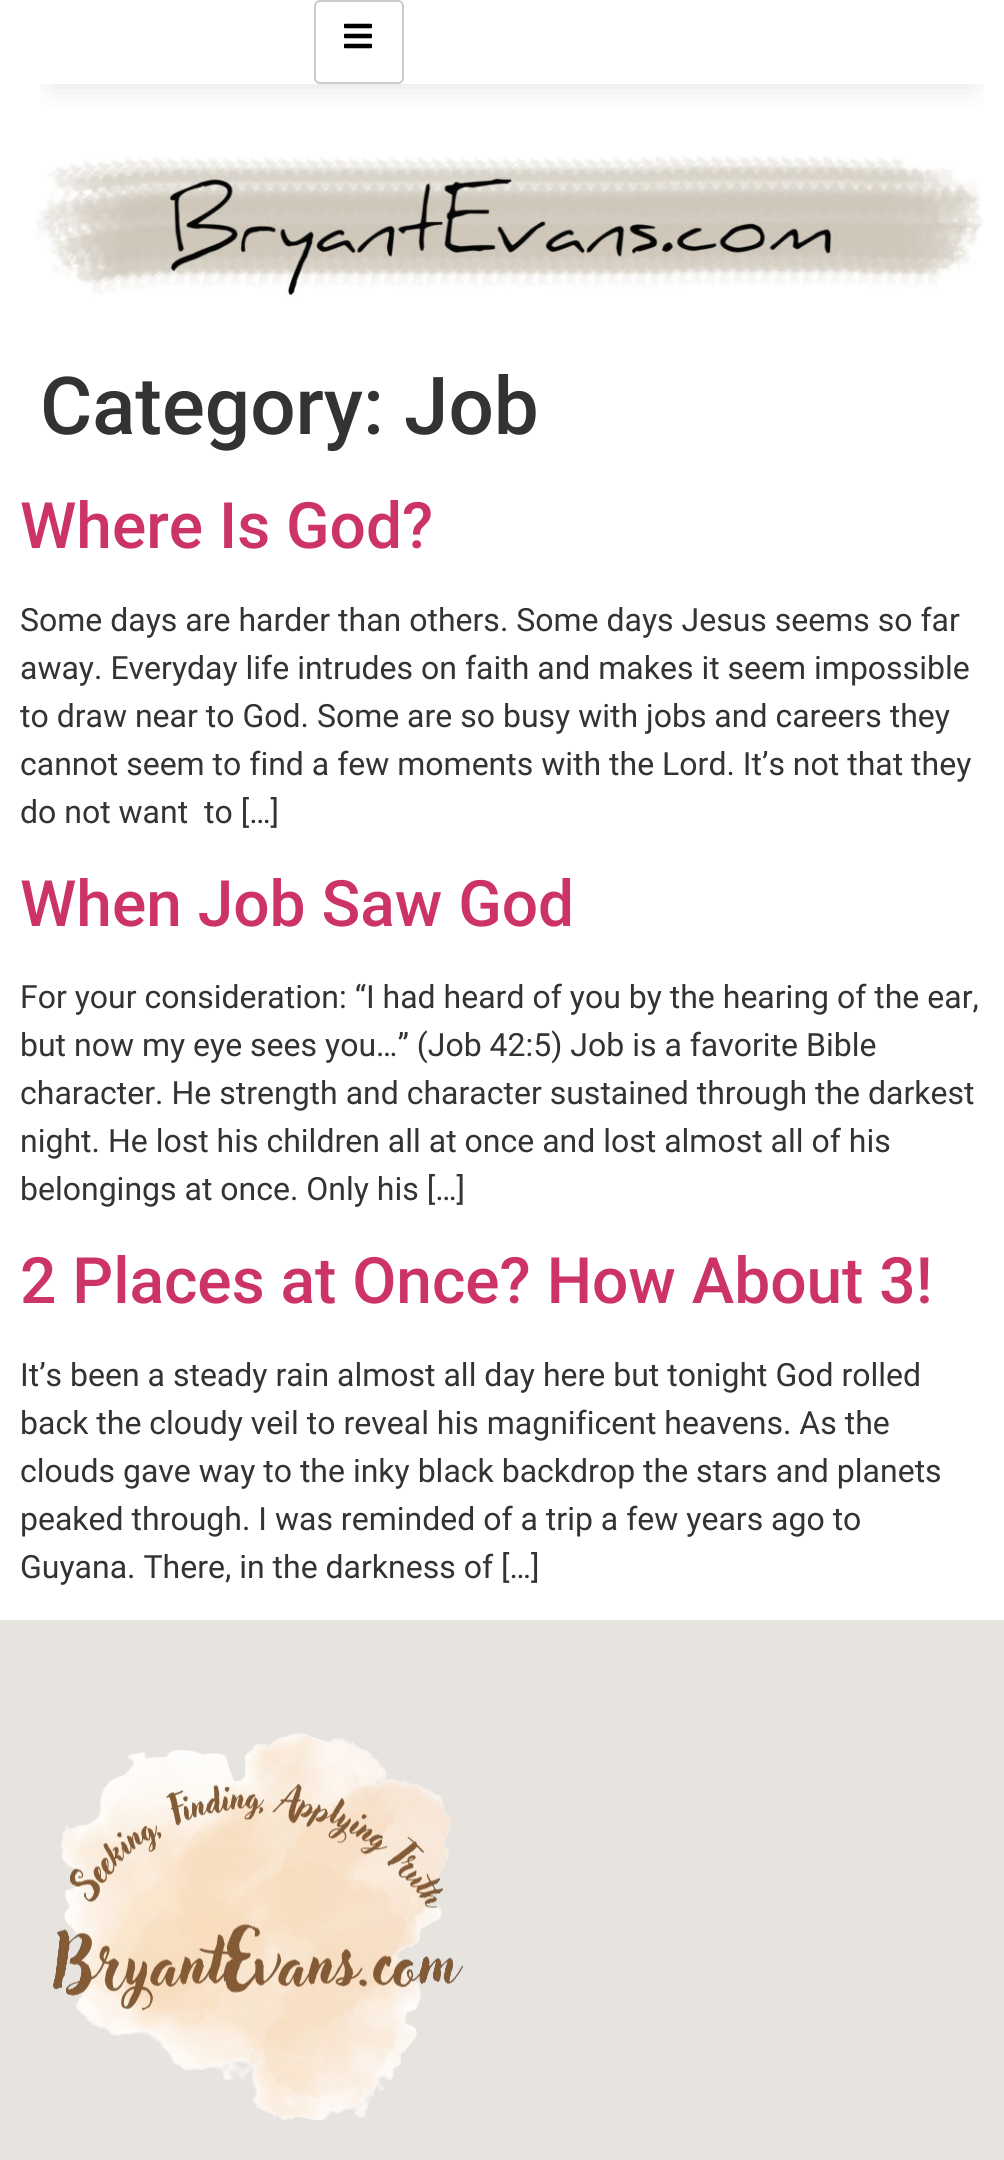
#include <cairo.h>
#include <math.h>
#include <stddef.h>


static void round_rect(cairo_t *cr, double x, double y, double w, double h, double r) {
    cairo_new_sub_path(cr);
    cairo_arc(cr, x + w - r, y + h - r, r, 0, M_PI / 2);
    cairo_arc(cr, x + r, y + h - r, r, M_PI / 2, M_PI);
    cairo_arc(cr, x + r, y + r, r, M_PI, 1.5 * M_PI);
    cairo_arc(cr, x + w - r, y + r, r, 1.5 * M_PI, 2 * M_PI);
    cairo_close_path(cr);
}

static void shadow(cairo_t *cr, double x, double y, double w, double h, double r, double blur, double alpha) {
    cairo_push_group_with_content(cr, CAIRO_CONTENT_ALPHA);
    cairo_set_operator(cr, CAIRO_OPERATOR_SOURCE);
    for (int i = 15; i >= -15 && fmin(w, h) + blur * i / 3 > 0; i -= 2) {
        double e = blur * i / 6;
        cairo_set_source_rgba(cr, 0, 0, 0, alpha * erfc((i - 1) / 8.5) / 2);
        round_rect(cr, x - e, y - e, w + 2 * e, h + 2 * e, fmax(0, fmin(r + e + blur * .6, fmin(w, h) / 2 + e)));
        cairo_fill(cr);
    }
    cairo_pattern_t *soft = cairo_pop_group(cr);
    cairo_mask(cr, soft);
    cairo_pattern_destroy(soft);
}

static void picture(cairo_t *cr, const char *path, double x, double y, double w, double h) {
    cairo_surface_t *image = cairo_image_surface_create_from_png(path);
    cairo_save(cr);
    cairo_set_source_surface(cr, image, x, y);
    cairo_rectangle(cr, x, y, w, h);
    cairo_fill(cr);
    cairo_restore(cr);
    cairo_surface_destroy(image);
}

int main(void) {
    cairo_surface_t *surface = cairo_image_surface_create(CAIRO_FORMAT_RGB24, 1004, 2160);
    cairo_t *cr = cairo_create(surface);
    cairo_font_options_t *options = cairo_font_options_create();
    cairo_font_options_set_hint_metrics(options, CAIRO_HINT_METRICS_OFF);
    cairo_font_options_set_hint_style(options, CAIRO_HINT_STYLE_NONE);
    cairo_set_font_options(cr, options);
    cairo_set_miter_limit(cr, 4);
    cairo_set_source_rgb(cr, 1, 1, 1);
    cairo_paint(cr);
    cairo_save(cr);
    cairo_rectangle(cr, 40, 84, 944, 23);
    cairo_clip(cr);
    cairo_set_source_rgb(cr, 0.702, 0.702, 0.702);
    shadow(cr, 56, 70, 912, 12, 0, 15, 0.5);
    cairo_restore(cr);
    round_rect(cr, 315, 1, 88, 82, 5);
    cairo_set_source_rgb(cr, 0.8, 0.8, 0.8);
    cairo_stroke(cr);
    picture(cr, "img1.png", 344, 23, 28, 26);
    picture(cr, "img2.png", 36, 155, 948, 142);
    cairo_select_font_face(cr, "Roboto Medium", CAIRO_FONT_SLANT_NORMAL, CAIRO_FONT_WEIGHT_NORMAL);
    cairo_set_font_size(cr, 80);
    cairo_set_source_rgb(cr, 0.2, 0.2, 0.2);
    cairo_move_to(cr, 40, 434);
    cairo_show_text(cr, "Category: Job");
    cairo_set_font_size(cr, 64);
    cairo_set_source_rgb(cr, 0.8, 0.2, 0.4);
    cairo_move_to(cr, 20, 548);
    cairo_show_text(cr, "Where Is God?");
    cairo_select_font_face(cr, "Roboto", CAIRO_FONT_SLANT_NORMAL, CAIRO_FONT_WEIGHT_NORMAL);
    cairo_set_font_size(cr, 32);
    cairo_set_source_rgb(cr, 0.2, 0.2, 0.2);
    cairo_move_to(cr, 20, 631);
    cairo_show_text(cr, "Some days are harder than others. Some days Jesus seems so far");
    cairo_move_to(cr, 20, 679);
    cairo_show_text(cr, "away. Everyday life intrudes on faith and makes it seem impossible");
    cairo_move_to(cr, 20, 727);
    cairo_show_text(cr, "to draw near to God. Some are so busy with jobs and careers they");
    cairo_move_to(cr, 20, 775);
    cairo_show_text(cr, "cannot seem to find a few moments with the Lord. It’s not that they");
    cairo_move_to(cr, 20, 823);
    cairo_show_text(cr, "do not want  to […]");
    cairo_select_font_face(cr, "Roboto Medium", CAIRO_FONT_SLANT_NORMAL, CAIRO_FONT_WEIGHT_NORMAL);
    cairo_set_font_size(cr, 64);
    cairo_set_source_rgb(cr, 0.8, 0.2, 0.4);
    cairo_move_to(cr, 20, 926);
    cairo_show_text(cr, "When Job Saw God");
    cairo_select_font_face(cr, "Roboto", CAIRO_FONT_SLANT_NORMAL, CAIRO_FONT_WEIGHT_NORMAL);
    cairo_set_font_size(cr, 32);
    cairo_set_source_rgb(cr, 0.2, 0.2, 0.2);
    cairo_move_to(cr, 20, 1008);
    cairo_show_text(cr, "For your consideration: “I had heard of you by the hearing of the ear,");
    cairo_move_to(cr, 20, 1056);
    cairo_show_text(cr, "but now my eye sees you…” (Job 42:5) Job is a favorite Bible");
    cairo_move_to(cr, 20, 1104);
    cairo_show_text(cr, "character. He strength and character sustained through the darkest");
    cairo_move_to(cr, 20, 1152);
    cairo_show_text(cr, "night. He lost his children all at once and lost almost all of his");
    cairo_move_to(cr, 20, 1200);
    cairo_show_text(cr, "belongings at once. Only his […]");
    cairo_select_font_face(cr, "Roboto Medium", CAIRO_FONT_SLANT_NORMAL, CAIRO_FONT_WEIGHT_NORMAL);
    cairo_set_font_size(cr, 64);
    cairo_set_source_rgb(cr, 0.8, 0.2, 0.4);
    cairo_move_to(cr, 20, 1303);
    cairo_show_text(cr, "2 Places at Once? How About 3!");
    cairo_select_font_face(cr, "Roboto", CAIRO_FONT_SLANT_NORMAL, CAIRO_FONT_WEIGHT_NORMAL);
    cairo_set_font_size(cr, 32);
    cairo_set_source_rgb(cr, 0.2, 0.2, 0.2);
    cairo_move_to(cr, 20, 1386);
    cairo_show_text(cr, "It’s been a steady rain almost all day here but tonight God rolled");
    cairo_move_to(cr, 20, 1434);
    cairo_show_text(cr, "back the cloudy veil to reveal his magnificent heavens. As the");
    cairo_move_to(cr, 20, 1482);
    cairo_show_text(cr, "clouds gave way to the inky black backdrop the stars and planets");
    cairo_move_to(cr, 20, 1530);
    cairo_show_text(cr, "peaked through. I was reminded of a trip a few years ago to");
    cairo_move_to(cr, 20, 1578);
    cairo_show_text(cr, "Guyana. There, in the darkness of […]");
    cairo_set_source_rgb(cr, 0.906, 0.89, 0.875);
    cairo_rectangle(cr, 0, 1620, 1004, 540);
    cairo_fill(cr);
    picture(cr, "img3.png", 53, 1733, 410, 387);
    cairo_surface_write_to_png(surface, "page.png");
    cairo_font_options_destroy(options);
    cairo_destroy(cr);
    cairo_surface_destroy(surface);
    return 0;
}
